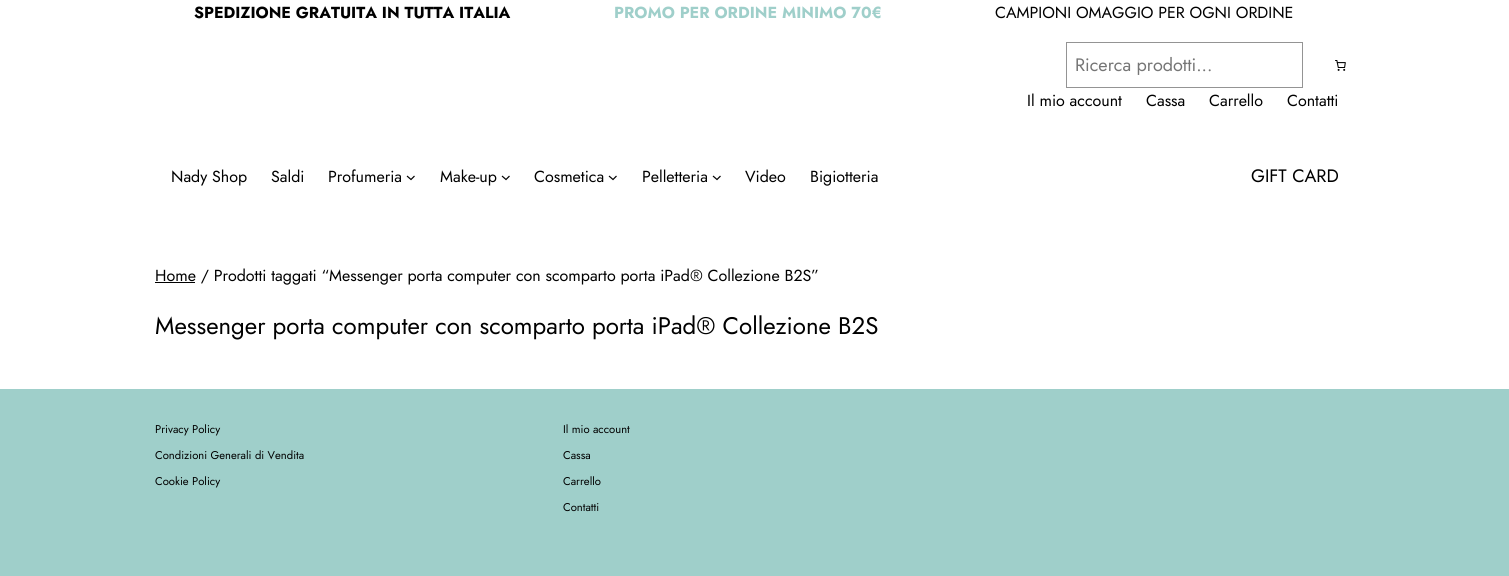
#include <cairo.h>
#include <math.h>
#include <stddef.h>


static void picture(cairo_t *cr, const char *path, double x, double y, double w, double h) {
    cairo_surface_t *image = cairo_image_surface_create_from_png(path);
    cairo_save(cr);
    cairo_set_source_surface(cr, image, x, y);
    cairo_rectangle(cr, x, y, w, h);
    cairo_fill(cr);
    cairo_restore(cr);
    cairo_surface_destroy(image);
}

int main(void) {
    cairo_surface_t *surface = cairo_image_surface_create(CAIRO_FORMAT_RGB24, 1509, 576);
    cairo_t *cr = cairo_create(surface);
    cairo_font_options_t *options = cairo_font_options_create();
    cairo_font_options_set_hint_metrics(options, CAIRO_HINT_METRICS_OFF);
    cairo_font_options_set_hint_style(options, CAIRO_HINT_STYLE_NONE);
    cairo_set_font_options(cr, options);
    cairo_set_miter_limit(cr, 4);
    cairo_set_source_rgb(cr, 1, 1, 1);
    cairo_paint(cr);
    cairo_select_font_face(cr, "Jost", CAIRO_FONT_SLANT_NORMAL, CAIRO_FONT_WEIGHT_BOLD);
    cairo_set_font_size(cr, 16);
    cairo_set_source_rgb(cr, 0, 0, 0);
    cairo_move_to(cr, 194, 18);
    cairo_show_text(cr, "SPEDIZIONE GRATUITA IN TUTTA ITALIA");
    cairo_set_source_rgb(cr, 0.624, 0.812, 0.792);
    cairo_move_to(cr, 614, 18);
    cairo_show_text(cr, "PROMO PER ORDINE MINIMO 70€");
    cairo_select_font_face(cr, "Jost", CAIRO_FONT_SLANT_NORMAL, CAIRO_FONT_WEIGHT_NORMAL);
    cairo_set_source_rgb(cr, 0, 0, 0);
    cairo_move_to(cr, 995, 18);
    cairo_show_text(cr, "CAMPIONI OMAGGIO PER OGNI ORDINE");
    cairo_rectangle(cr, 1066.5, 42.5, 236, 45);
    cairo_set_source_rgb(cr, 0.58, 0.58, 0.58);
    cairo_set_line_width(cr, 1);
    cairo_stroke(cr);
    cairo_set_font_size(cr, 18);
    cairo_set_source_rgb(cr, 0.459, 0.459, 0.459);
    cairo_move_to(cr, 1075, 71);
    cairo_show_text(cr, "Ricerca prodotti...");
    picture(cr, "img1.png", 1335, 60, 11, 11);
    cairo_set_font_size(cr, 16);
    cairo_set_source_rgb(cr, 0, 0, 0);
    cairo_move_to(cr, 1027, 106);
    cairo_show_text(cr, "Il mio account");
    cairo_move_to(cr, 1146, 106);
    cairo_show_text(cr, "Cassa");
    cairo_move_to(cr, 1209, 106);
    cairo_show_text(cr, "Carrello");
    cairo_move_to(cr, 1287, 106);
    cairo_show_text(cr, "Contatti");
    cairo_move_to(cr, 171, 182);
    cairo_show_text(cr, "Nady Shop");
    cairo_move_to(cr, 271, 182);
    cairo_show_text(cr, "Saldi");
    cairo_move_to(cr, 328, 182);
    cairo_show_text(cr, "Profumeria");
    cairo_new_path(cr);
    cairo_move_to(cr, 407, 176);
    cairo_line_to(cr, 411, 179.5);
    cairo_line_to(cr, 414.5, 176);
    cairo_set_line_width(cr, 1.2);
    cairo_stroke(cr);
    cairo_move_to(cr, 440, 182);
    cairo_show_text(cr, "Make-up");
    cairo_new_path(cr);
    cairo_move_to(cr, 502, 176);
    cairo_line_to(cr, 506, 179.5);
    cairo_line_to(cr, 509.5, 176);
    cairo_stroke(cr);
    cairo_move_to(cr, 534, 182);
    cairo_show_text(cr, "Cosmetica");
    cairo_new_path(cr);
    cairo_move_to(cr, 609, 176);
    cairo_line_to(cr, 613, 179.5);
    cairo_line_to(cr, 616.5, 176);
    cairo_stroke(cr);
    cairo_move_to(cr, 642, 182);
    cairo_show_text(cr, "Pelletteria");
    cairo_new_path(cr);
    cairo_move_to(cr, 713, 176);
    cairo_line_to(cr, 717, 179.5);
    cairo_line_to(cr, 720.5, 176);
    cairo_stroke(cr);
    cairo_move_to(cr, 745, 182);
    cairo_show_text(cr, "Video");
    cairo_move_to(cr, 810, 182);
    cairo_show_text(cr, "Bigiotteria");
    cairo_set_font_size(cr, 18);
    cairo_move_to(cr, 1251, 182);
    cairo_show_text(cr, "GIFT CARD");
    cairo_rectangle(cr, 155, 282, 40, 1);
    cairo_fill(cr);
    cairo_set_font_size(cr, 16);
    cairo_move_to(cr, 155, 281);
    cairo_show_text(cr, "Home / Prodotti taggati “Messenger porta computer con scomparto porta iPad® Collezione B2S”");
    cairo_set_font_size(cr, 24);
    cairo_move_to(cr, 155, 334);
    cairo_show_text(cr, "Messenger porta computer con scomparto porta iPad® Collezione B2S");
    cairo_set_source_rgb(cr, 0.624, 0.812, 0.792);
    cairo_rectangle(cr, 0, 389, 1509, 187);
    cairo_fill(cr);
    cairo_set_font_size(cr, 11.25);
    cairo_set_source_rgb(cr, 0, 0, 0);
    cairo_move_to(cr, 155, 433);
    cairo_show_text(cr, "Privacy Policy");
    cairo_move_to(cr, 155, 459);
    cairo_show_text(cr, "Condizioni Generali di Vendita");
    cairo_move_to(cr, 155, 485);
    cairo_show_text(cr, "Cookie Policy");
    cairo_move_to(cr, 563, 433);
    cairo_show_text(cr, "Il mio account");
    cairo_move_to(cr, 563, 459);
    cairo_show_text(cr, "Cassa");
    cairo_move_to(cr, 563, 485);
    cairo_show_text(cr, "Carrello");
    cairo_move_to(cr, 563, 511);
    cairo_show_text(cr, "Contatti");
    cairo_surface_write_to_png(surface, "page.png");
    cairo_font_options_destroy(options);
    cairo_destroy(cr);
    cairo_surface_destroy(surface);
    return 0;
}
